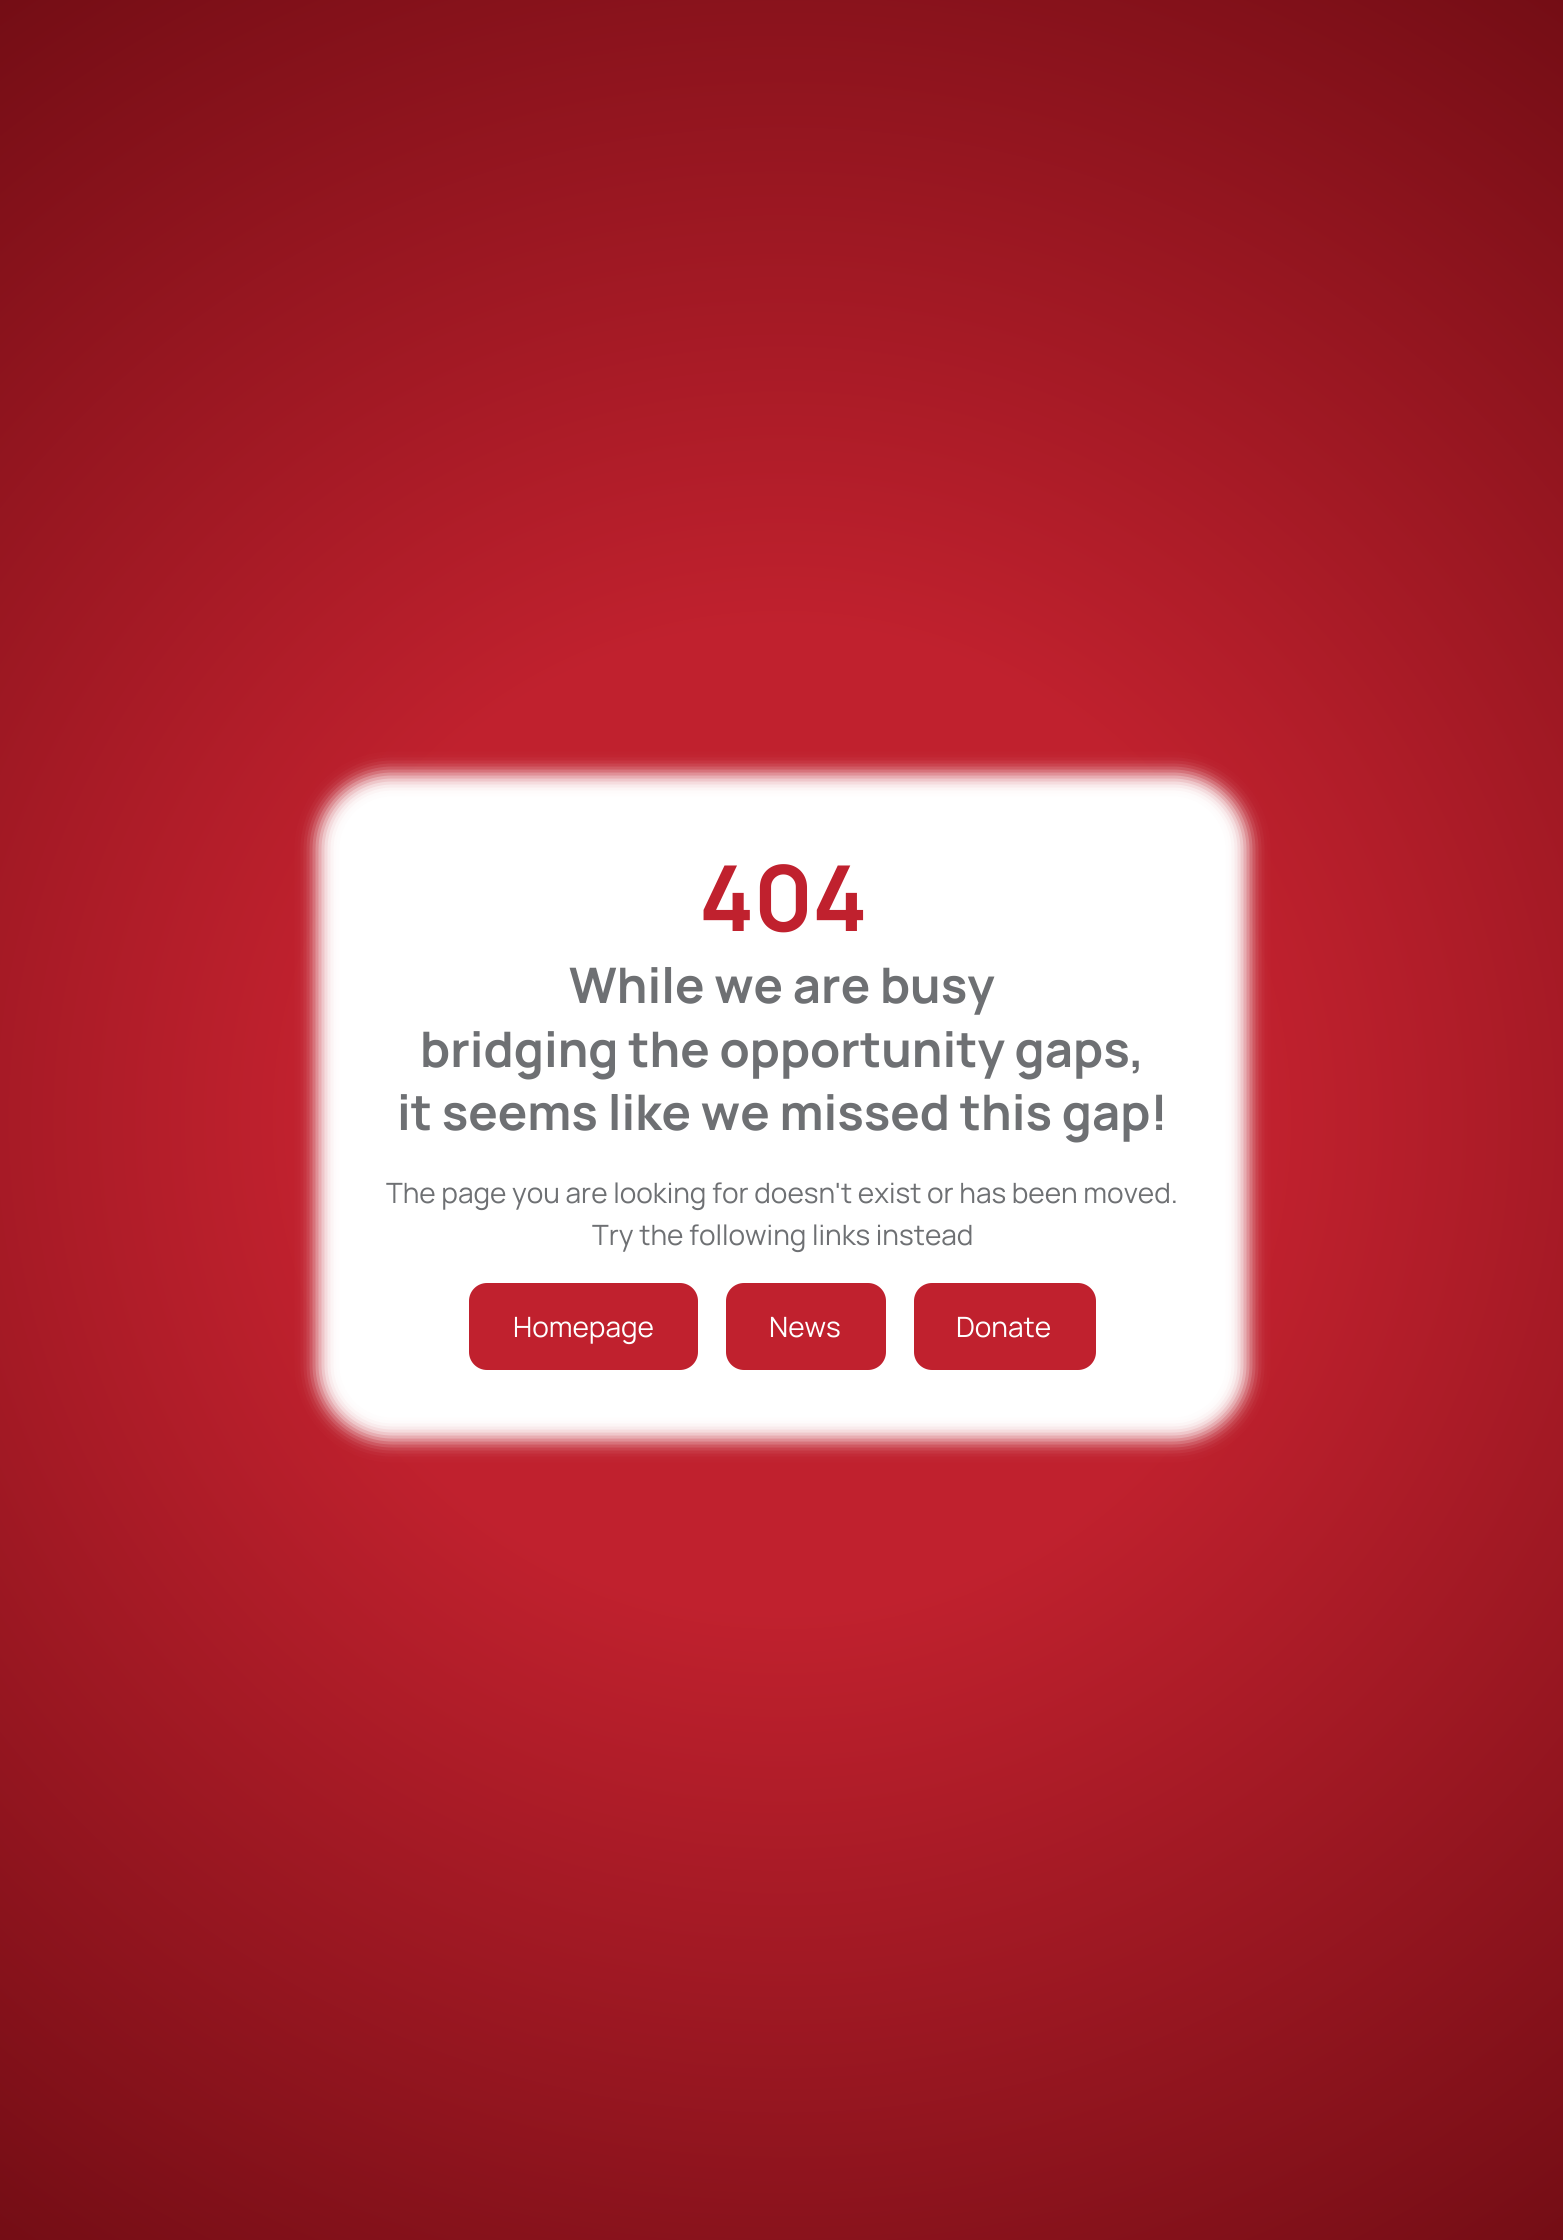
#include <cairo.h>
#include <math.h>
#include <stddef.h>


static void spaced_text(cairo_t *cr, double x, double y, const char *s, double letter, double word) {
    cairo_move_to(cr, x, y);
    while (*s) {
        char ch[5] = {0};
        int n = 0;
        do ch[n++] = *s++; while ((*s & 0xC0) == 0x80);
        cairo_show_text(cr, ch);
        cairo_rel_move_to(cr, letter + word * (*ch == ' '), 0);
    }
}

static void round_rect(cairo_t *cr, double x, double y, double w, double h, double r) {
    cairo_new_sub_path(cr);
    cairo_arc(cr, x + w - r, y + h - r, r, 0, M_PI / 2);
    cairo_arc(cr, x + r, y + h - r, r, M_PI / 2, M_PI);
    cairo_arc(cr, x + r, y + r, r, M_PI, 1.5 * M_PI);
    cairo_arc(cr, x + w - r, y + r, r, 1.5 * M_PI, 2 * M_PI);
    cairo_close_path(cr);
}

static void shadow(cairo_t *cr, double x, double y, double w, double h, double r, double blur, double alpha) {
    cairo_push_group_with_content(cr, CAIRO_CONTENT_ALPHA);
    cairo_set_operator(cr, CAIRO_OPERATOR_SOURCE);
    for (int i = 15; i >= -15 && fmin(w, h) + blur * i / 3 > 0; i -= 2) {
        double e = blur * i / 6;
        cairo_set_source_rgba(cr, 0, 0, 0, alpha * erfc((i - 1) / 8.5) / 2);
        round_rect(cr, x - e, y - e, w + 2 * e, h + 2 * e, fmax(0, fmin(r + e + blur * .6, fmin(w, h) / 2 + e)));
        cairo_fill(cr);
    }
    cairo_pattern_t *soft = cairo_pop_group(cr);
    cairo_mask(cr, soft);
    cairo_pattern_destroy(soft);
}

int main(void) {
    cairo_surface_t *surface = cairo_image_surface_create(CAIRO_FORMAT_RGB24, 1563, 2240);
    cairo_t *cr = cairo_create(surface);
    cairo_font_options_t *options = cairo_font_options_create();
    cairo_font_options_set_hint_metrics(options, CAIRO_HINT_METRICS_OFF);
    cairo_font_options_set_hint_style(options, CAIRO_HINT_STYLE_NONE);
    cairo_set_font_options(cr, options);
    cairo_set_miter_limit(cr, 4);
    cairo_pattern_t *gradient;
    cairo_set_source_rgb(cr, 1, 1, 1);
    cairo_paint(cr);
    gradient = cairo_pattern_create_radial(782, 1120, 0, 782, 1120, 1366);
    cairo_pattern_add_color_stop_rgba(gradient, 0.36, 0.753, 0.129, 0.18, 1);
    cairo_pattern_add_color_stop_rgba(gradient, 1, 0.455, 0.051, 0.082, 1);
    cairo_set_source(cr, gradient);
    cairo_pattern_destroy(gradient);
    cairo_rectangle(cr, 0, 0, 1563, 2240);
    cairo_fill(cr);
    cairo_set_source_rgb(cr, 1, 1, 1);
    shadow(cr, 317, 774, 931, 666, 70, 9, 1);
    cairo_select_font_face(cr, "Manrope", CAIRO_FONT_SLANT_NORMAL, CAIRO_FONT_WEIGHT_BOLD);
    cairo_set_font_size(cr, 91);
    cairo_set_source_rgb(cr, 0.753, 0.129, 0.18);
    spaced_text(cr, 699, 931, "404", -1, 0);
    cairo_set_font_size(cr, 49);
    cairo_set_source_rgb(cr, 0.431, 0.439, 0.451);
    cairo_move_to(cr, 569, 1003);
    cairo_show_text(cr, "While we are busy");
    cairo_move_to(cr, 420, 1067);
    cairo_show_text(cr, "bridging the opportunity gaps,");
    cairo_move_to(cr, 397, 1130);
    cairo_show_text(cr, "it seems like we missed this gap!");
    cairo_select_font_face(cr, "Manrope", CAIRO_FONT_SLANT_NORMAL, CAIRO_FONT_WEIGHT_NORMAL);
    cairo_set_font_size(cr, 28);
    cairo_move_to(cr, 386, 1203);
    cairo_show_text(cr, "The page you are looking for doesn't exist or has been moved.");
    cairo_move_to(cr, 592, 1245);
    cairo_show_text(cr, "Try the following links instead");
    cairo_set_source_rgb(cr, 0.753, 0.129, 0.18);
    round_rect(cr, 470, 1284, 227, 85, 17);
    cairo_fill_preserve(cr);
    cairo_stroke(cr);
    cairo_set_source_rgb(cr, 1, 1, 1);
    cairo_move_to(cr, 513, 1337);
    cairo_show_text(cr, "Homepage");
    cairo_set_source_rgb(cr, 0.753, 0.129, 0.18);
    round_rect(cr, 727, 1284, 158, 85, 17);
    cairo_fill_preserve(cr);
    cairo_stroke(cr);
    cairo_set_source_rgb(cr, 1, 1, 1);
    cairo_move_to(cr, 769, 1337);
    cairo_show_text(cr, "News");
    cairo_set_source_rgb(cr, 0.753, 0.129, 0.18);
    round_rect(cr, 915, 1284, 180, 85, 17);
    cairo_fill_preserve(cr);
    cairo_stroke(cr);
    cairo_set_source_rgb(cr, 1, 1, 1);
    cairo_move_to(cr, 956, 1337);
    cairo_show_text(cr, "Donate");
    cairo_surface_write_to_png(surface, "page.png");
    cairo_font_options_destroy(options);
    cairo_destroy(cr);
    cairo_surface_destroy(surface);
    return 0;
}
